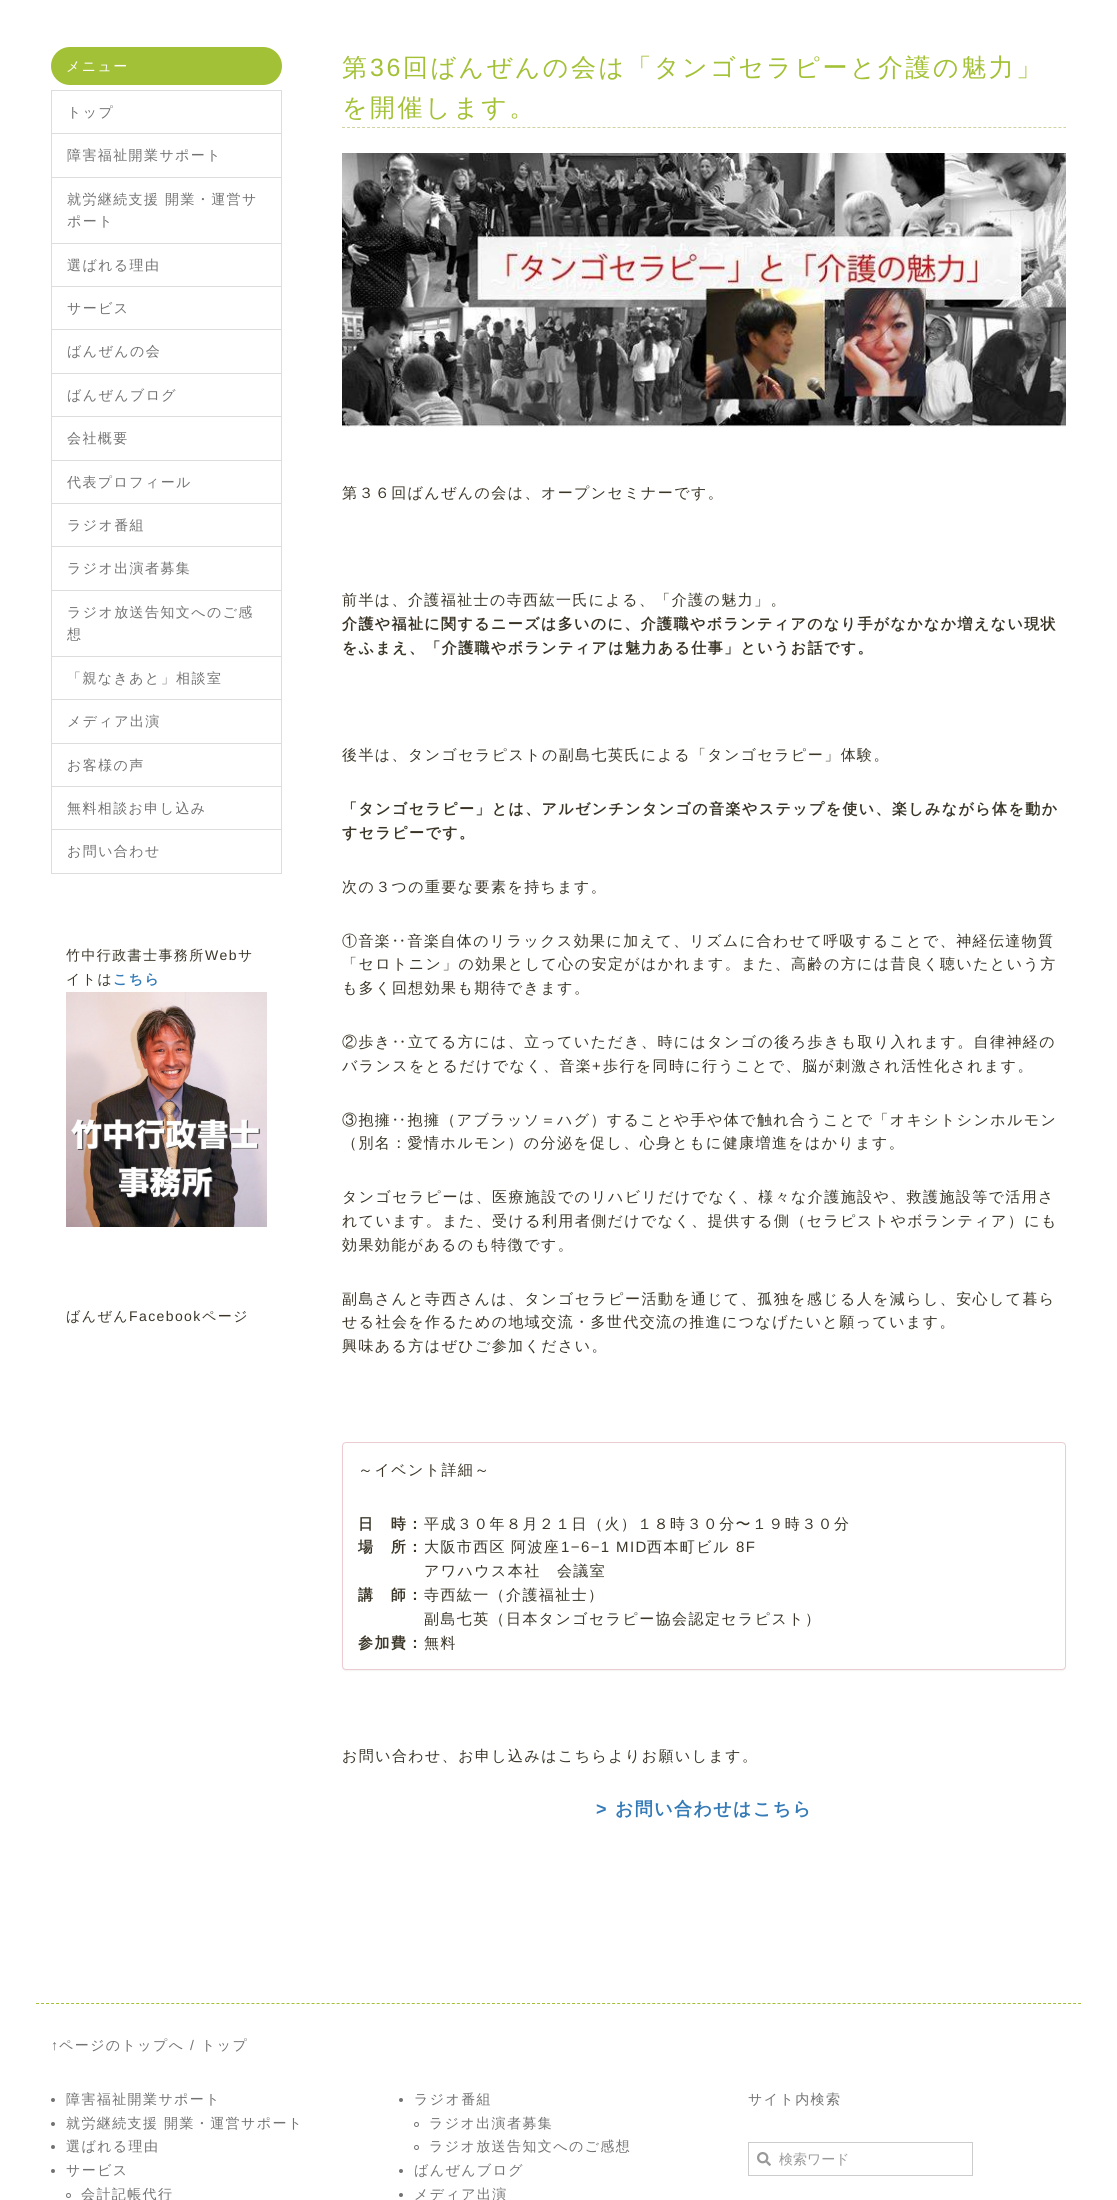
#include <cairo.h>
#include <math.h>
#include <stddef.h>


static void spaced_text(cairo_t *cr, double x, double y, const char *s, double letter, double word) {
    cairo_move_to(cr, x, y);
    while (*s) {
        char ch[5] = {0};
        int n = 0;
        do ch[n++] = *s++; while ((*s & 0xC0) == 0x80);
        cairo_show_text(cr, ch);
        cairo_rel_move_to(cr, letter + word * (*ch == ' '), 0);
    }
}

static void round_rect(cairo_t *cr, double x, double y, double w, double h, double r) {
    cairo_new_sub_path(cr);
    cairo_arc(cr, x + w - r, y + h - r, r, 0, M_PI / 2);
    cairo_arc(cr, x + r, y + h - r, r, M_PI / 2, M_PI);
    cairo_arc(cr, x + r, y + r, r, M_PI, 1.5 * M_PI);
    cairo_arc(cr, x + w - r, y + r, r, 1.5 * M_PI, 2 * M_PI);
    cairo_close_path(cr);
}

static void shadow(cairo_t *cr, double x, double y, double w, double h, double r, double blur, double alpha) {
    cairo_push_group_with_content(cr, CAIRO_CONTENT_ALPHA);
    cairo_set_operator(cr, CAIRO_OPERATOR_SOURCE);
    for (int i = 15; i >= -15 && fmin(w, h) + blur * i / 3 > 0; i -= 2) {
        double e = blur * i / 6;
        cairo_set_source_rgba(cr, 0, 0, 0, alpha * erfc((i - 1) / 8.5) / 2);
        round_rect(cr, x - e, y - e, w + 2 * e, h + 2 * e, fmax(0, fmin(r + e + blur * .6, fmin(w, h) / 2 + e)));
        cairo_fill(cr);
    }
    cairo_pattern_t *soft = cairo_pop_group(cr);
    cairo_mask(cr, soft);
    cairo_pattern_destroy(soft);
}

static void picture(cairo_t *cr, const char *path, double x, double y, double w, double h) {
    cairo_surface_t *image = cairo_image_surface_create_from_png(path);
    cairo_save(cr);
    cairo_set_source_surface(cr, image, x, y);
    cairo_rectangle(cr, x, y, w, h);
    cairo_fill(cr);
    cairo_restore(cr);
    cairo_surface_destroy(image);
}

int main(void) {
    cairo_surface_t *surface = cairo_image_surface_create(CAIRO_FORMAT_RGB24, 1117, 2200);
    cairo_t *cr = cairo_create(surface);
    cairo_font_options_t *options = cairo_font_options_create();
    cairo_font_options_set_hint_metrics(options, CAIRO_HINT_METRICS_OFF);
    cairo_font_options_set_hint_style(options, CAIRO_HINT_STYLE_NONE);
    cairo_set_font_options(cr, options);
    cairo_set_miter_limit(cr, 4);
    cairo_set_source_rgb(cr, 1, 1, 1);
    cairo_paint(cr);
    cairo_set_source_rgb(cr, 0.639, 0.757, 0.212);
    round_rect(cr, 51, 47, 231, 38, 19);
    cairo_fill(cr);
    cairo_select_font_face(cr, "WenQuanYi Zen Hei Medium", CAIRO_FONT_SLANT_NORMAL, CAIRO_FONT_WEIGHT_NORMAL);
    cairo_set_font_size(cr, 14);
    cairo_set_source_rgb(cr, 1, 1, 1);
    spaced_text(cr, 66, 71, "メニュー", 1.4, 0);
    cairo_rectangle(cr, 51.5, 90.5, 230, 43);
    cairo_set_source_rgb(cr, 0.867, 0.867, 0.867);
    cairo_set_line_width(cr, 1);
    cairo_stroke(cr);
    cairo_set_source_rgb(cr, 0.451, 0.447, 0.447);
    spaced_text(cr, 67, 117, "トップ", 1.4, 0);
    cairo_set_source_rgb(cr, 0.867, 0.867, 0.867);
    cairo_rectangle(cr, 281, 134, 1, 740);
    cairo_fill(cr);
    cairo_rectangle(cr, 51, 177, 231, 1);
    cairo_fill(cr);
    cairo_rectangle(cr, 51, 134, 1, 44);
    cairo_fill(cr);
    cairo_set_source_rgb(cr, 0.451, 0.447, 0.447);
    spaced_text(cr, 67, 160, "障害福祉開業サポート", 1.4, 0);
    cairo_set_source_rgb(cr, 0.867, 0.867, 0.867);
    cairo_rectangle(cr, 51, 243, 231, 1);
    cairo_fill(cr);
    cairo_rectangle(cr, 51, 178, 1, 66);
    cairo_fill(cr);
    cairo_set_source_rgb(cr, 0.451, 0.447, 0.447);
    spaced_text(cr, 67, 204, "就労継続支援 開業・運営サ", 1.4, 0);
    spaced_text(cr, 67, 226, "ポート", 1.4, 0);
    cairo_set_source_rgb(cr, 0.867, 0.867, 0.867);
    cairo_rectangle(cr, 51, 286, 231, 1);
    cairo_fill(cr);
    cairo_rectangle(cr, 51, 244, 1, 43);
    cairo_fill(cr);
    cairo_set_source_rgb(cr, 0.451, 0.447, 0.447);
    spaced_text(cr, 67, 270, "選ばれる理由", 1.4, 0);
    cairo_set_source_rgb(cr, 0.867, 0.867, 0.867);
    cairo_rectangle(cr, 51, 329, 231, 1);
    cairo_fill(cr);
    cairo_rectangle(cr, 51, 287, 1, 43);
    cairo_fill(cr);
    cairo_set_source_rgb(cr, 0.451, 0.447, 0.447);
    spaced_text(cr, 67, 313, "サービス", 1.4, 0);
    cairo_set_source_rgb(cr, 0.867, 0.867, 0.867);
    cairo_rectangle(cr, 51, 373, 231, 1);
    cairo_fill(cr);
    cairo_rectangle(cr, 51, 330, 1, 44);
    cairo_fill(cr);
    cairo_set_source_rgb(cr, 0.451, 0.447, 0.447);
    spaced_text(cr, 67, 356, "ばんぜんの会", 1.4, 0);
    cairo_set_source_rgb(cr, 0.867, 0.867, 0.867);
    cairo_rectangle(cr, 51, 416, 231, 1);
    cairo_fill(cr);
    cairo_rectangle(cr, 51, 374, 1, 43);
    cairo_fill(cr);
    cairo_set_source_rgb(cr, 0.451, 0.447, 0.447);
    spaced_text(cr, 67, 400, "ばんぜんブログ", 1.4, 0);
    cairo_set_source_rgb(cr, 0.867, 0.867, 0.867);
    cairo_rectangle(cr, 51, 460, 231, 1);
    cairo_fill(cr);
    cairo_rectangle(cr, 51, 417, 1, 44);
    cairo_fill(cr);
    cairo_set_source_rgb(cr, 0.451, 0.447, 0.447);
    spaced_text(cr, 67, 443, "会社概要", 1.4, 0);
    cairo_set_source_rgb(cr, 0.867, 0.867, 0.867);
    cairo_rectangle(cr, 51, 503, 231, 1);
    cairo_fill(cr);
    cairo_rectangle(cr, 51, 461, 1, 43);
    cairo_fill(cr);
    cairo_set_source_rgb(cr, 0.451, 0.447, 0.447);
    spaced_text(cr, 67, 487, "代表プロフィール", 1.4, 0);
    cairo_set_source_rgb(cr, 0.867, 0.867, 0.867);
    cairo_rectangle(cr, 51, 546, 231, 1);
    cairo_fill(cr);
    cairo_rectangle(cr, 51, 504, 1, 43);
    cairo_fill(cr);
    cairo_set_source_rgb(cr, 0.451, 0.447, 0.447);
    spaced_text(cr, 67, 530, "ラジオ番組", 1.4, 0);
    cairo_set_source_rgb(cr, 0.867, 0.867, 0.867);
    cairo_rectangle(cr, 51, 590, 231, 1);
    cairo_fill(cr);
    cairo_rectangle(cr, 51, 547, 1, 44);
    cairo_fill(cr);
    cairo_set_source_rgb(cr, 0.451, 0.447, 0.447);
    spaced_text(cr, 67, 573, "ラジオ出演者募集", 1.4, 0);
    cairo_set_source_rgb(cr, 0.867, 0.867, 0.867);
    cairo_rectangle(cr, 51, 656, 231, 1);
    cairo_fill(cr);
    cairo_rectangle(cr, 51, 591, 1, 66);
    cairo_fill(cr);
    cairo_set_source_rgb(cr, 0.451, 0.447, 0.447);
    spaced_text(cr, 67, 617, "ラジオ放送告知文へのご感", 1.4, 0);
    spaced_text(cr, 67, 639, "想", 1.4, 0);
    cairo_set_source_rgb(cr, 0.867, 0.867, 0.867);
    cairo_rectangle(cr, 51, 699, 231, 1);
    cairo_fill(cr);
    cairo_rectangle(cr, 51, 657, 1, 43);
    cairo_fill(cr);
    cairo_set_source_rgb(cr, 0.451, 0.447, 0.447);
    spaced_text(cr, 67, 683, "「親なきあと」相談室", 1.4, 0);
    cairo_set_source_rgb(cr, 0.867, 0.867, 0.867);
    cairo_rectangle(cr, 51, 743, 231, 1);
    cairo_fill(cr);
    cairo_rectangle(cr, 51, 700, 1, 44);
    cairo_fill(cr);
    cairo_set_source_rgb(cr, 0.451, 0.447, 0.447);
    spaced_text(cr, 67, 726, "メディア出演", 1.4, 0);
    cairo_set_source_rgb(cr, 0.867, 0.867, 0.867);
    cairo_rectangle(cr, 51, 786, 231, 1);
    cairo_fill(cr);
    cairo_rectangle(cr, 51, 744, 1, 43);
    cairo_fill(cr);
    cairo_set_source_rgb(cr, 0.451, 0.447, 0.447);
    spaced_text(cr, 67, 770, "お客様の声", 1.4, 0);
    cairo_set_source_rgb(cr, 0.867, 0.867, 0.867);
    cairo_rectangle(cr, 51, 829, 231, 1);
    cairo_fill(cr);
    cairo_rectangle(cr, 51, 787, 1, 43);
    cairo_fill(cr);
    cairo_set_source_rgb(cr, 0.451, 0.447, 0.447);
    spaced_text(cr, 67, 813, "無料相談お申し込み", 1.4, 0);
    cairo_set_source_rgb(cr, 0.867, 0.867, 0.867);
    cairo_rectangle(cr, 51, 873, 231, 1);
    cairo_fill(cr);
    cairo_rectangle(cr, 51, 830, 1, 44);
    cairo_fill(cr);
    cairo_set_source_rgb(cr, 0.451, 0.447, 0.447);
    spaced_text(cr, 67, 856, "お問い合わせ", 1.4, 0);
    cairo_set_source_rgb(cr, 0.227, 0.208, 0.153);
    spaced_text(cr, 66, 960, "竹中行政書士事務所", 1.4, 0);
    cairo_select_font_face(cr, "Liberation Sans", CAIRO_FONT_SLANT_NORMAL, CAIRO_FONT_WEIGHT_NORMAL);
    spaced_text(cr, 205, 960, "Web", 1.4, 0);
    cairo_select_font_face(cr, "WenQuanYi Zen Hei Medium", CAIRO_FONT_SLANT_NORMAL, CAIRO_FONT_WEIGHT_NORMAL);
    spaced_text(cr, 238, 960, "サ", 1.4, 0);
    spaced_text(cr, 66, 984, "イトは", 1.4, 0);
    cairo_select_font_face(cr, "WenQuanYi Zen Hei", CAIRO_FONT_SLANT_NORMAL, CAIRO_FONT_WEIGHT_BOLD);
    cairo_set_source_rgb(cr, 0.2, 0.478, 0.718);
    spaced_text(cr, 113, 984, "こちら", 1.4, 0);
    picture(cr, "img1.png", 66, 992, 201, 235);
    cairo_select_font_face(cr, "WenQuanYi Zen Hei Medium", CAIRO_FONT_SLANT_NORMAL, CAIRO_FONT_WEIGHT_NORMAL);
    cairo_set_source_rgb(cr, 0.227, 0.208, 0.153);
    spaced_text(cr, 66, 1321, "ばんぜん", 1.4, 0);
    cairo_select_font_face(cr, "Liberation Sans", CAIRO_FONT_SLANT_NORMAL, CAIRO_FONT_WEIGHT_NORMAL);
    spaced_text(cr, 129, 1321, "Facebook", 1.4, 0);
    cairo_select_font_face(cr, "WenQuanYi Zen Hei Medium", CAIRO_FONT_SLANT_NORMAL, CAIRO_FONT_WEIGHT_NORMAL);
    spaced_text(cr, 202, 1321, "ページ", 1.4, 0);
    cairo_new_path(cr);
    cairo_move_to(cr, 342, 127.5);
    cairo_line_to(cr, 1066, 127.5);
    cairo_set_source_rgb(cr, 0.824, 0.827, 0.639);
    cairo_set_dash(cr, (double[]){3, 2.01}, 2, 0);
    cairo_stroke(cr);
    cairo_set_font_size(cr, 25);
    cairo_set_source_rgb(cr, 0.639, 0.757, 0.212);
    spaced_text(cr, 342, 76, "第", 2.5, 0);
    cairo_select_font_face(cr, "Liberation Sans", CAIRO_FONT_SLANT_NORMAL, CAIRO_FONT_WEIGHT_NORMAL);
    spaced_text(cr, 370, 76, "36", 2.5, 0);
    cairo_select_font_face(cr, "WenQuanYi Zen Hei Medium", CAIRO_FONT_SLANT_NORMAL, CAIRO_FONT_WEIGHT_NORMAL);
    spaced_text(cr, 403, 76, "回ばんぜんの会は「タンゴセラピーと介護の魅力」", 2.5, 0);
    spaced_text(cr, 342, 116, "を開催します。", 2.5, 0);
    picture(cr, "img2.png", 342, 153, 724, 274);
    cairo_set_font_size(cr, 15);
    cairo_set_source_rgb(cr, 0.227, 0.208, 0.153);
    spaced_text(cr, 342, 498, "第３６回ばんぜんの会は、オープンセミナーです。", 1.4, 0);
    spaced_text(cr, 342, 605, "前半は、介護福祉士の寺西紘一氏による、「介護の魅力」。", 1.4, 0);
    cairo_select_font_face(cr, "WenQuanYi Zen Hei", CAIRO_FONT_SLANT_NORMAL, CAIRO_FONT_WEIGHT_BOLD);
    spaced_text(cr, 342, 629, "介護や福祉に関するニーズは多いのに、介護職やボランティアのなり手がなかなか増えない現状", 1.4, 0);
    spaced_text(cr, 342, 653, "をふまえ、「介護職やボランティアは魅力ある仕事」というお話です。", 1.4, 0);
    cairo_select_font_face(cr, "WenQuanYi Zen Hei Medium", CAIRO_FONT_SLANT_NORMAL, CAIRO_FONT_WEIGHT_NORMAL);
    spaced_text(cr, 342, 760, "後半は、タンゴセラピストの副島七英氏による「タンゴセラピー」体験。", 1.4, 0);
    cairo_select_font_face(cr, "WenQuanYi Zen Hei", CAIRO_FONT_SLANT_NORMAL, CAIRO_FONT_WEIGHT_BOLD);
    spaced_text(cr, 342, 814, "「タンゴセラピー」とは、アルゼンチンタンゴの音楽やステップを使い、楽しみながら体を動か", 1.4, 0);
    spaced_text(cr, 342, 838, "すセラピーです。", 1.4, 0);
    cairo_select_font_face(cr, "WenQuanYi Zen Hei Medium", CAIRO_FONT_SLANT_NORMAL, CAIRO_FONT_WEIGHT_NORMAL);
    spaced_text(cr, 342, 892, "次の３つの重要な要素を持ちます。", 1.4, 0);
    spaced_text(cr, 342, 946, "①音楽‥音楽自体のリラックス効果に加えて、リズムに合わせて呼吸することで、神経伝達物質", 1.4, 0);
    spaced_text(cr, 342, 969, "「セロトニン」の効果として心の安定がはかれます。また、高齢の方には昔良く聴いたという方", 1.4, 0);
    spaced_text(cr, 342, 993, "も多く回想効果も期待できます。", 1.4, 0);
    spaced_text(cr, 342, 1047, "②歩き‥立てる方には、立っていただき、時にはタンゴの後ろ歩きも取り入れます。自律神経の", 1.4, 0);
    spaced_text(cr, 342, 1071, "バランスをとるだけでなく、音楽", 1.4, 0);
    cairo_select_font_face(cr, "Liberation Sans", CAIRO_FONT_SLANT_NORMAL, CAIRO_FONT_WEIGHT_NORMAL);
    spaced_text(cr, 592, 1071, "+", 1.4, 0);
    cairo_select_font_face(cr, "WenQuanYi Zen Hei Medium", CAIRO_FONT_SLANT_NORMAL, CAIRO_FONT_WEIGHT_NORMAL);
    spaced_text(cr, 603, 1071, "歩行を同時に行うことで、脳が刺激され活性化されます。", 1.4, 0);
    spaced_text(cr, 342, 1125, "③抱擁‥抱擁（アブラッソ＝ハグ）することや手や体で触れ合うことで「オキシトシンホルモン", 1.4, 0);
    spaced_text(cr, 342, 1148, "（別名：愛情ホルモン）の分泌を促し、心身ともに健康増進をはかります。", 1.4, 0);
    spaced_text(cr, 342, 1202, "タンゴセラピーは、医療施設でのリハビリだけでなく、様々な介護施設や、救護施設等で活用さ", 1.4, 0);
    spaced_text(cr, 342, 1226, "れています。また、受ける利用者側だけでなく、提供する側（セラピストやボランティア）にも", 1.4, 0);
    spaced_text(cr, 342, 1250, "効果効能があるのも特徴です。", 1.4, 0);
    spaced_text(cr, 342, 1304, "副島さんと寺西さんは、タンゴセラピー活動を通じて、孤独を感じる人を減らし、安心して暮ら", 1.4, 0);
    spaced_text(cr, 342, 1327, "せる社会を作るための地域交流・多世代交流の推進につなげたいと願っています。", 1.4, 0);
    spaced_text(cr, 342, 1351, "興味ある方はぜひご参加ください。", 1.4, 0);
    cairo_set_source_rgb(cr, 0, 0, 0);
    shadow(cr, 342, 1443, 724, 228, 4, 0.5, 0.05);
    cairo_set_source_rgb(cr, 1, 1, 1);
    round_rect(cr, 342.5, 1442.5, 723, 227, 3.5);
    cairo_fill_preserve(cr);
    cairo_set_source_rgb(cr, 0.922, 0.8, 0.82);
    cairo_set_dash(cr, NULL, 0, 0);
    cairo_stroke(cr);
    cairo_set_source_rgb(cr, 0.227, 0.208, 0.153);
    spaced_text(cr, 358, 1475, "～イベント詳細～", 1.4, 0);
    cairo_select_font_face(cr, "WenQuanYi Zen Hei", CAIRO_FONT_SLANT_NORMAL, CAIRO_FONT_WEIGHT_BOLD);
    spaced_text(cr, 358, 1529, "日　時：", 1.4, 0);
    cairo_select_font_face(cr, "WenQuanYi Zen Hei Medium", CAIRO_FONT_SLANT_NORMAL, CAIRO_FONT_WEIGHT_NORMAL);
    spaced_text(cr, 424, 1529, "平成３０年８月２１日（火）１８時３０分〜１９時３０分", 1.4, 0);
    cairo_select_font_face(cr, "WenQuanYi Zen Hei", CAIRO_FONT_SLANT_NORMAL, CAIRO_FONT_WEIGHT_BOLD);
    spaced_text(cr, 358, 1552, "場　所：", 1.4, 0);
    cairo_select_font_face(cr, "WenQuanYi Zen Hei Medium", CAIRO_FONT_SLANT_NORMAL, CAIRO_FONT_WEIGHT_NORMAL);
    spaced_text(cr, 424, 1552, "大阪市西区", 1.4, 0);
    spaced_text(cr, 511, 1552, "阿波座", 1.4, 0);
    cairo_select_font_face(cr, "Liberation Sans", CAIRO_FONT_SLANT_NORMAL, CAIRO_FONT_WEIGHT_NORMAL);
    spaced_text(cr, 561, 1552, "1−6−1 MID", 1.4, 0);
    cairo_select_font_face(cr, "WenQuanYi Zen Hei Medium", CAIRO_FONT_SLANT_NORMAL, CAIRO_FONT_WEIGHT_NORMAL);
    spaced_text(cr, 647, 1552, "西本町ビル", 1.4, 0);
    cairo_select_font_face(cr, "Liberation Sans", CAIRO_FONT_SLANT_NORMAL, CAIRO_FONT_WEIGHT_NORMAL);
    spaced_text(cr, 736, 1552, "8F", 1.4, 0);
    cairo_select_font_face(cr, "WenQuanYi Zen Hei Medium", CAIRO_FONT_SLANT_NORMAL, CAIRO_FONT_WEIGHT_NORMAL);
    spaced_text(cr, 424, 1576, "アワハウス本社　会議室", 1.4, 0);
    cairo_select_font_face(cr, "WenQuanYi Zen Hei", CAIRO_FONT_SLANT_NORMAL, CAIRO_FONT_WEIGHT_BOLD);
    spaced_text(cr, 358, 1600, "講　師：", 1.4, 0);
    cairo_select_font_face(cr, "WenQuanYi Zen Hei Medium", CAIRO_FONT_SLANT_NORMAL, CAIRO_FONT_WEIGHT_NORMAL);
    spaced_text(cr, 424, 1600, "寺西紘一（介護福祉士）", 1.4, 0);
    spaced_text(cr, 424, 1624, "副島七英（日本タンゴセラピー協会認定セラピスト）", 1.4, 0);
    cairo_select_font_face(cr, "WenQuanYi Zen Hei", CAIRO_FONT_SLANT_NORMAL, CAIRO_FONT_WEIGHT_BOLD);
    spaced_text(cr, 358, 1648, "参加費：", 1.4, 0);
    cairo_select_font_face(cr, "WenQuanYi Zen Hei Medium", CAIRO_FONT_SLANT_NORMAL, CAIRO_FONT_WEIGHT_NORMAL);
    spaced_text(cr, 424, 1648, "無料", 1.4, 0);
    spaced_text(cr, 342, 1761, "お問い合わせ、お申し込みはこちらよりお願いします。", 1.4, 0);
    cairo_select_font_face(cr, "Liberation Sans", CAIRO_FONT_SLANT_NORMAL, CAIRO_FONT_WEIGHT_BOLD);
    cairo_set_font_size(cr, 18);
    cairo_set_source_rgb(cr, 0.2, 0.478, 0.718);
    spaced_text(cr, 596, 1815, ">", 1.4, 0);
    cairo_select_font_face(cr, "WenQuanYi Zen Hei", CAIRO_FONT_SLANT_NORMAL, CAIRO_FONT_WEIGHT_BOLD);
    spaced_text(cr, 615, 1815, "お問い合わせはこちら", 1.4, 0);
    cairo_new_path(cr);
    cairo_move_to(cr, 36, 2003.5);
    cairo_line_to(cr, 1081, 2003.5);
    cairo_set_source_rgb(cr, 0.639, 0.757, 0.212);
    cairo_set_dash(cr, (double[]){3, 2.01}, 2, 0);
    cairo_stroke(cr);
    cairo_select_font_face(cr, "Liberation Sans", CAIRO_FONT_SLANT_NORMAL, CAIRO_FONT_WEIGHT_NORMAL);
    cairo_set_font_size(cr, 14);
    cairo_set_source_rgb(cr, 0.451, 0.447, 0.447);
    spaced_text(cr, 51, 2050, "↑", 1.4, 0);
    cairo_select_font_face(cr, "WenQuanYi Zen Hei Medium", CAIRO_FONT_SLANT_NORMAL, CAIRO_FONT_WEIGHT_NORMAL);
    spaced_text(cr, 59, 2050, "ページのトップへ", 1.4, 0);
    cairo_select_font_face(cr, "Liberation Sans", CAIRO_FONT_SLANT_NORMAL, CAIRO_FONT_WEIGHT_NORMAL);
    spaced_text(cr, 190, 2050, "/", 1.4, 0);
    cairo_select_font_face(cr, "WenQuanYi Zen Hei Medium", CAIRO_FONT_SLANT_NORMAL, CAIRO_FONT_WEIGHT_NORMAL);
    spaced_text(cr, 201, 2050, "トップ", 1.4, 0);
    cairo_new_path(cr);
    cairo_arc(cr, 53, 2100, 2, 0, 2 * M_PI);
    cairo_fill(cr);
    spaced_text(cr, 66, 2104, "障害福祉開業サポート", 1.4, 0);
    cairo_new_path(cr);
    cairo_arc(cr, 53, 2124, 2, 0, 2 * M_PI);
    cairo_fill(cr);
    spaced_text(cr, 66, 2128, "就労継続支援 開業・運営サポート", 1.4, 0);
    cairo_new_path(cr);
    cairo_arc(cr, 53, 2147, 2, 0, 2 * M_PI);
    cairo_fill(cr);
    spaced_text(cr, 66, 2151, "選ばれる理由", 1.4, 0);
    cairo_new_path(cr);
    cairo_arc(cr, 53, 2171, 2, 0, 2 * M_PI);
    cairo_fill(cr);
    spaced_text(cr, 66, 2175, "サービス", 1.4, 0);
    cairo_new_path(cr);
    cairo_arc(cr, 68.5, 2195.5, 2, 0, 2 * M_PI);
    cairo_set_dash(cr, NULL, 0, 0);
    cairo_stroke(cr);
    spaced_text(cr, 81, 2199, "会計記帳代行", 1.4, 0);
    cairo_new_path(cr);
    cairo_arc(cr, 401, 2100, 2, 0, 2 * M_PI);
    cairo_fill(cr);
    spaced_text(cr, 414, 2104, "ラジオ番組", 1.4, 0);
    cairo_new_path(cr);
    cairo_arc(cr, 416.5, 2124.5, 2, 0, 2 * M_PI);
    cairo_stroke(cr);
    spaced_text(cr, 429, 2128, "ラジオ出演者募集", 1.4, 0);
    cairo_new_path(cr);
    cairo_arc(cr, 416.5, 2147.5, 2, 0, 2 * M_PI);
    cairo_stroke(cr);
    spaced_text(cr, 429, 2151, "ラジオ放送告知文へのご感想", 1.4, 0);
    cairo_new_path(cr);
    cairo_arc(cr, 401, 2171, 2, 0, 2 * M_PI);
    cairo_fill(cr);
    spaced_text(cr, 414, 2175, "ばんぜんブログ", 1.4, 0);
    cairo_new_path(cr);
    cairo_arc(cr, 401, 2195, 2, 0, 2 * M_PI);
    cairo_fill(cr);
    spaced_text(cr, 414, 2199, "メディア出演", 1.4, 0);
    spaced_text(cr, 748, 2104, "サイト内検索", 1.4, 0);
    cairo_rectangle(cr, 748.5, 2142.5, 224, 33);
    cairo_set_source_rgb(cr, 0.8, 0.8, 0.8);
    cairo_stroke(cr);
    picture(cr, "img3.png", 757, 2152, 14, 14);
    cairo_set_source_rgb(cr, 0.6, 0.6, 0.6);
    cairo_move_to(cr, 779, 2164);
    cairo_show_text(cr, "検索ワード");
    cairo_surface_write_to_png(surface, "page.png");
    cairo_font_options_destroy(options);
    cairo_destroy(cr);
    cairo_surface_destroy(surface);
    return 0;
}
